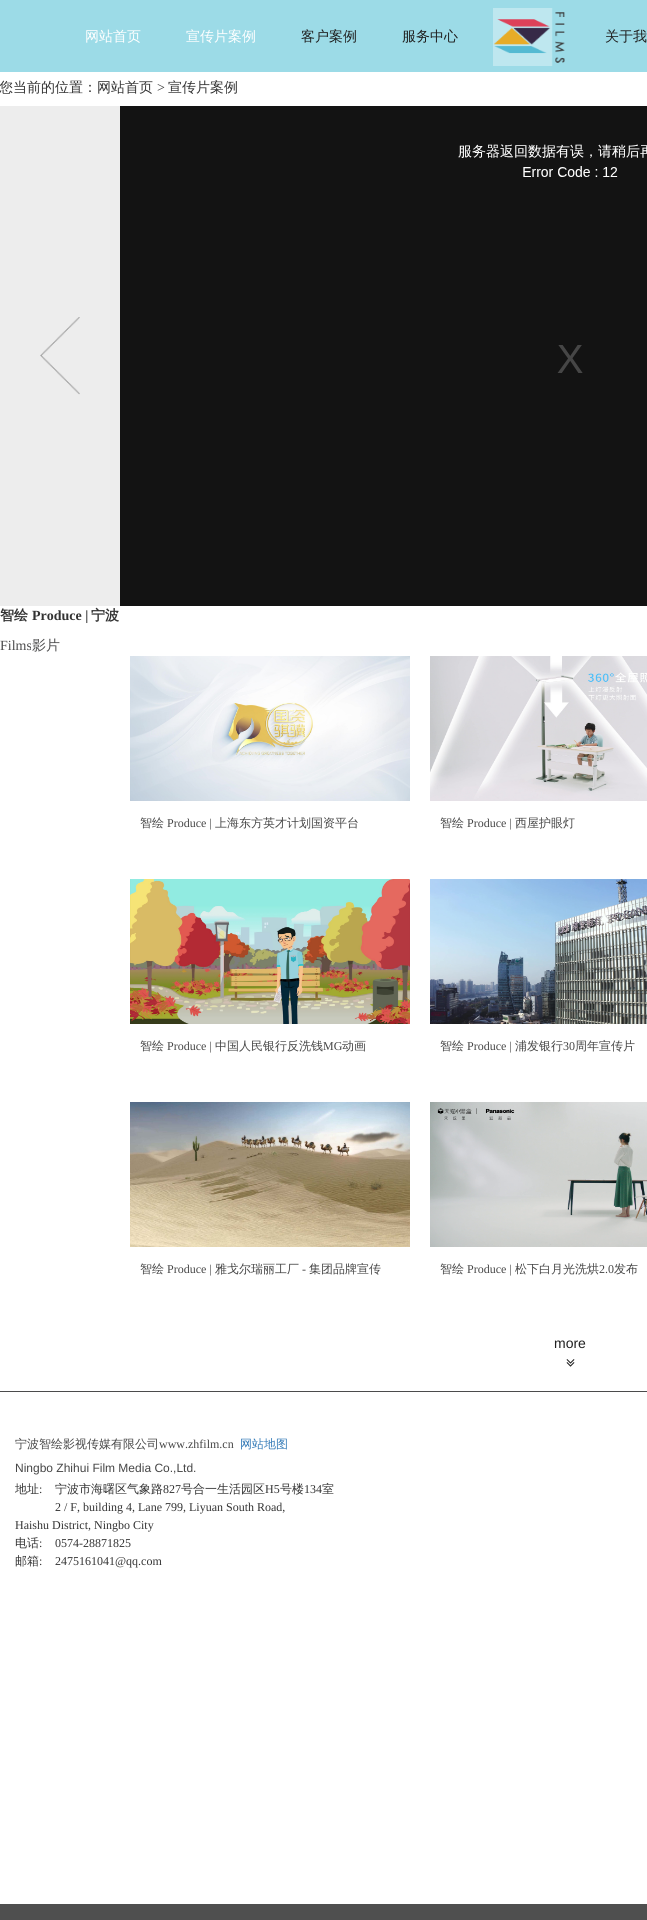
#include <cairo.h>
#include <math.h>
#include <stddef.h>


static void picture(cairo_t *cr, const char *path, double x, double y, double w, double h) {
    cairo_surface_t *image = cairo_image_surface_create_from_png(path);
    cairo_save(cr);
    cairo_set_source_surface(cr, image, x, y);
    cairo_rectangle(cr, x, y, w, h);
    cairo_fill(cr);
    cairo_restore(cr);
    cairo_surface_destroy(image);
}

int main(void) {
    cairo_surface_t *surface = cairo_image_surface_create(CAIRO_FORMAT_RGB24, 647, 1920);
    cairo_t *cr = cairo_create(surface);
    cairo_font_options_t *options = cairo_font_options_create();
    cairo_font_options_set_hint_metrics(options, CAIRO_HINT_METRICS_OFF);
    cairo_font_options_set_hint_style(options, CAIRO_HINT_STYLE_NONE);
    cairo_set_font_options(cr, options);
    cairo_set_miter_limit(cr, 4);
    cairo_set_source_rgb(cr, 1, 1, 1);
    cairo_paint(cr);
    cairo_set_source_rgb(cr, 0.612, 0.859, 0.906);
    cairo_rectangle(cr, 0, 0, 647, 72);
    cairo_fill(cr);
    cairo_select_font_face(cr, "WenQuanYi Zen Hei Medium", CAIRO_FONT_SLANT_NORMAL, CAIRO_FONT_WEIGHT_NORMAL);
    cairo_set_font_size(cr, 14);
    cairo_set_source_rgb(cr, 1, 1, 1);
    cairo_move_to(cr, 85, 41);
    cairo_show_text(cr, "网站首页");
    cairo_move_to(cr, 186, 41);
    cairo_show_text(cr, "宣传片案例");
    cairo_set_source_rgb(cr, 0.125, 0.125, 0.125);
    cairo_move_to(cr, 301, 41);
    cairo_show_text(cr, "客户案例");
    cairo_move_to(cr, 402, 41);
    cairo_show_text(cr, "服务中心");
    picture(cr, "img1.png", 493, 8, 72, 58);
    cairo_move_to(cr, 605, 41);
    cairo_show_text(cr, "关于我");
    cairo_set_source_rgb(cr, 0.2, 0.2, 0.2);
    cairo_move_to(cr, -1, 92);
    cairo_show_text(cr, "您当前的位置：网站首页");
    cairo_select_font_face(cr, "Liberation Serif", CAIRO_FONT_SLANT_NORMAL, CAIRO_FONT_WEIGHT_NORMAL);
    cairo_move_to(cr, 157, 92);
    cairo_show_text(cr, ">");
    cairo_select_font_face(cr, "WenQuanYi Zen Hei Medium", CAIRO_FONT_SLANT_NORMAL, CAIRO_FONT_WEIGHT_NORMAL);
    cairo_move_to(cr, 168, 92);
    cairo_show_text(cr, "宣传片案例");
    cairo_set_source_rgb(cr, 0.294, 0.294, 0.298);
    cairo_rectangle(cr, 0, 1391, 647, 1);
    cairo_fill(cr);
    cairo_set_source_rgb(cr, 0.929, 0.929, 0.929);
    cairo_rectangle(cr, 0, 106, 120, 500);
    cairo_fill(cr);
    picture(cr, "img2.png", 40, 317, 40, 78);
    picture(cr, "img3.png", 120, 106, 527, 500);
    cairo_select_font_face(cr, "WenQuanYi Zen Hei", CAIRO_FONT_SLANT_NORMAL, CAIRO_FONT_WEIGHT_BOLD);
    cairo_set_source_rgb(cr, 0.2, 0.2, 0.2);
    cairo_move_to(cr, 0, 620);
    cairo_show_text(cr, "智绘");
    cairo_select_font_face(cr, "Liberation Serif", CAIRO_FONT_SLANT_NORMAL, CAIRO_FONT_WEIGHT_BOLD);
    cairo_move_to(cr, 32, 620);
    cairo_show_text(cr, "Produce |");
    cairo_select_font_face(cr, "WenQuanYi Zen Hei", CAIRO_FONT_SLANT_NORMAL, CAIRO_FONT_WEIGHT_BOLD);
    cairo_move_to(cr, 91, 620);
    cairo_show_text(cr, "宁波");
    cairo_select_font_face(cr, "Liberation Serif", CAIRO_FONT_SLANT_NORMAL, CAIRO_FONT_WEIGHT_NORMAL);
    cairo_set_source_rgb(cr, 0.294, 0.294, 0.298);
    cairo_move_to(cr, 0, 650);
    cairo_show_text(cr, "Films");
    cairo_select_font_face(cr, "WenQuanYi Zen Hei Medium", CAIRO_FONT_SLANT_NORMAL, CAIRO_FONT_WEIGHT_NORMAL);
    cairo_move_to(cr, 32, 650);
    cairo_show_text(cr, "影片");
    picture(cr, "img4.png", 130, 656, 280, 145);
    cairo_set_font_size(cr, 12);
    cairo_set_source_rgb(cr, 0.275, 0.275, 0.275);
    cairo_move_to(cr, 140, 827);
    cairo_show_text(cr, "智绘");
    cairo_select_font_face(cr, "Liberation Serif", CAIRO_FONT_SLANT_NORMAL, CAIRO_FONT_WEIGHT_NORMAL);
    cairo_move_to(cr, 167, 827);
    cairo_show_text(cr, "Produce |");
    cairo_select_font_face(cr, "WenQuanYi Zen Hei Medium", CAIRO_FONT_SLANT_NORMAL, CAIRO_FONT_WEIGHT_NORMAL);
    cairo_move_to(cr, 215, 827);
    cairo_show_text(cr, "上海东方英才计划国资平台");
    picture(cr, "img5.png", 430, 656, 217, 145);
    cairo_move_to(cr, 440, 827);
    cairo_show_text(cr, "智绘");
    cairo_select_font_face(cr, "Liberation Serif", CAIRO_FONT_SLANT_NORMAL, CAIRO_FONT_WEIGHT_NORMAL);
    cairo_move_to(cr, 467, 827);
    cairo_show_text(cr, "Produce |");
    cairo_select_font_face(cr, "WenQuanYi Zen Hei Medium", CAIRO_FONT_SLANT_NORMAL, CAIRO_FONT_WEIGHT_NORMAL);
    cairo_move_to(cr, 515, 827);
    cairo_show_text(cr, "西屋护眼灯");
    picture(cr, "img6.png", 130, 879, 280, 145);
    cairo_move_to(cr, 140, 1050);
    cairo_show_text(cr, "智绘");
    cairo_select_font_face(cr, "Liberation Serif", CAIRO_FONT_SLANT_NORMAL, CAIRO_FONT_WEIGHT_NORMAL);
    cairo_move_to(cr, 167, 1050);
    cairo_show_text(cr, "Produce |");
    cairo_select_font_face(cr, "WenQuanYi Zen Hei Medium", CAIRO_FONT_SLANT_NORMAL, CAIRO_FONT_WEIGHT_NORMAL);
    cairo_move_to(cr, 215, 1050);
    cairo_show_text(cr, "中国人民银行反洗钱");
    cairo_select_font_face(cr, "Liberation Serif", CAIRO_FONT_SLANT_NORMAL, CAIRO_FONT_WEIGHT_NORMAL);
    cairo_move_to(cr, 323, 1050);
    cairo_show_text(cr, "MG");
    cairo_select_font_face(cr, "WenQuanYi Zen Hei Medium", CAIRO_FONT_SLANT_NORMAL, CAIRO_FONT_WEIGHT_NORMAL);
    cairo_move_to(cr, 342, 1050);
    cairo_show_text(cr, "动画");
    picture(cr, "img7.png", 430, 879, 217, 145);
    cairo_move_to(cr, 440, 1050);
    cairo_show_text(cr, "智绘");
    cairo_select_font_face(cr, "Liberation Serif", CAIRO_FONT_SLANT_NORMAL, CAIRO_FONT_WEIGHT_NORMAL);
    cairo_move_to(cr, 467, 1050);
    cairo_show_text(cr, "Produce |");
    cairo_select_font_face(cr, "WenQuanYi Zen Hei Medium", CAIRO_FONT_SLANT_NORMAL, CAIRO_FONT_WEIGHT_NORMAL);
    cairo_move_to(cr, 515, 1050);
    cairo_show_text(cr, "浦发银行");
    cairo_select_font_face(cr, "Liberation Serif", CAIRO_FONT_SLANT_NORMAL, CAIRO_FONT_WEIGHT_NORMAL);
    cairo_move_to(cr, 563, 1050);
    cairo_show_text(cr, "30");
    cairo_select_font_face(cr, "WenQuanYi Zen Hei Medium", CAIRO_FONT_SLANT_NORMAL, CAIRO_FONT_WEIGHT_NORMAL);
    cairo_move_to(cr, 575, 1050);
    cairo_show_text(cr, "周年宣传片");
    picture(cr, "img8.png", 130, 1102, 280, 145);
    cairo_move_to(cr, 140, 1273);
    cairo_show_text(cr, "智绘");
    cairo_select_font_face(cr, "Liberation Serif", CAIRO_FONT_SLANT_NORMAL, CAIRO_FONT_WEIGHT_NORMAL);
    cairo_move_to(cr, 167, 1273);
    cairo_show_text(cr, "Produce |");
    cairo_select_font_face(cr, "WenQuanYi Zen Hei Medium", CAIRO_FONT_SLANT_NORMAL, CAIRO_FONT_WEIGHT_NORMAL);
    cairo_move_to(cr, 215, 1273);
    cairo_show_text(cr, "雅戈尔瑞丽工厂");
    cairo_select_font_face(cr, "Liberation Serif", CAIRO_FONT_SLANT_NORMAL, CAIRO_FONT_WEIGHT_NORMAL);
    cairo_move_to(cr, 302, 1273);
    cairo_show_text(cr, "-");
    cairo_select_font_face(cr, "WenQuanYi Zen Hei Medium", CAIRO_FONT_SLANT_NORMAL, CAIRO_FONT_WEIGHT_NORMAL);
    cairo_move_to(cr, 309, 1273);
    cairo_show_text(cr, "集团品牌宣传");
    picture(cr, "img9.png", 430, 1102, 217, 145);
    cairo_move_to(cr, 440, 1273);
    cairo_show_text(cr, "智绘");
    cairo_select_font_face(cr, "Liberation Serif", CAIRO_FONT_SLANT_NORMAL, CAIRO_FONT_WEIGHT_NORMAL);
    cairo_move_to(cr, 467, 1273);
    cairo_show_text(cr, "Produce |");
    cairo_select_font_face(cr, "WenQuanYi Zen Hei Medium", CAIRO_FONT_SLANT_NORMAL, CAIRO_FONT_WEIGHT_NORMAL);
    cairo_move_to(cr, 515, 1273);
    cairo_show_text(cr, "松下白月光洗烘");
    cairo_select_font_face(cr, "Liberation Serif", CAIRO_FONT_SLANT_NORMAL, CAIRO_FONT_WEIGHT_NORMAL);
    cairo_move_to(cr, 599, 1273);
    cairo_show_text(cr, "2.0");
    cairo_select_font_face(cr, "WenQuanYi Zen Hei Medium", CAIRO_FONT_SLANT_NORMAL, CAIRO_FONT_WEIGHT_NORMAL);
    cairo_move_to(cr, 614, 1273);
    cairo_show_text(cr, "发布");
    cairo_select_font_face(cr, "Liberation Sans", CAIRO_FONT_SLANT_NORMAL, CAIRO_FONT_WEIGHT_NORMAL);
    cairo_set_font_size(cr, 14);
    cairo_set_source_rgb(cr, 0.125, 0.125, 0.125);
    cairo_move_to(cr, 554, 1348);
    cairo_show_text(cr, "more");
    picture(cr, "img10.png", 566, 1359, 9, 8);
    cairo_select_font_face(cr, "WenQuanYi Zen Hei Medium", CAIRO_FONT_SLANT_NORMAL, CAIRO_FONT_WEIGHT_NORMAL);
    cairo_set_font_size(cr, 12);
    cairo_set_source_rgb(cr, 0.275, 0.275, 0.275);
    cairo_move_to(cr, 15, 1448);
    cairo_show_text(cr, "宁波智绘影视传媒有限公司");
    cairo_select_font_face(cr, "Liberation Serif", CAIRO_FONT_SLANT_NORMAL, CAIRO_FONT_WEIGHT_NORMAL);
    cairo_move_to(cr, 159, 1448);
    cairo_show_text(cr, "www.zhfilm.cn");
    cairo_select_font_face(cr, "WenQuanYi Zen Hei Medium", CAIRO_FONT_SLANT_NORMAL, CAIRO_FONT_WEIGHT_NORMAL);
    cairo_set_source_rgb(cr, 0.2, 0.478, 0.718);
    cairo_move_to(cr, 240, 1448);
    cairo_show_text(cr, "网站地图");
    cairo_select_font_face(cr, "Liberation Sans", CAIRO_FONT_SLANT_NORMAL, CAIRO_FONT_WEIGHT_NORMAL);
    cairo_set_source_rgb(cr, 0.275, 0.275, 0.275);
    cairo_move_to(cr, 15, 1472);
    cairo_show_text(cr, "Ningbo Zhihui Film Media Co.,Ltd.");
    cairo_select_font_face(cr, "WenQuanYi Zen Hei Medium", CAIRO_FONT_SLANT_NORMAL, CAIRO_FONT_WEIGHT_NORMAL);
    cairo_set_source_rgb(cr, 0.2, 0.2, 0.2);
    cairo_move_to(cr, 15, 1493);
    cairo_show_text(cr, "地址");
    cairo_select_font_face(cr, "Liberation Serif", CAIRO_FONT_SLANT_NORMAL, CAIRO_FONT_WEIGHT_NORMAL);
    cairo_move_to(cr, 39, 1493);
    cairo_show_text(cr, ":");
    cairo_select_font_face(cr, "WenQuanYi Zen Hei Medium", CAIRO_FONT_SLANT_NORMAL, CAIRO_FONT_WEIGHT_NORMAL);
    cairo_move_to(cr, 55, 1493);
    cairo_show_text(cr, "宁波市海曙区气象路");
    cairo_select_font_face(cr, "Liberation Serif", CAIRO_FONT_SLANT_NORMAL, CAIRO_FONT_WEIGHT_NORMAL);
    cairo_move_to(cr, 163, 1493);
    cairo_show_text(cr, "827");
    cairo_select_font_face(cr, "WenQuanYi Zen Hei Medium", CAIRO_FONT_SLANT_NORMAL, CAIRO_FONT_WEIGHT_NORMAL);
    cairo_move_to(cr, 181, 1493);
    cairo_show_text(cr, "号合一生活园区");
    cairo_select_font_face(cr, "Liberation Serif", CAIRO_FONT_SLANT_NORMAL, CAIRO_FONT_WEIGHT_NORMAL);
    cairo_move_to(cr, 265, 1493);
    cairo_show_text(cr, "H5");
    cairo_select_font_face(cr, "WenQuanYi Zen Hei Medium", CAIRO_FONT_SLANT_NORMAL, CAIRO_FONT_WEIGHT_NORMAL);
    cairo_move_to(cr, 280, 1493);
    cairo_show_text(cr, "号楼");
    cairo_select_font_face(cr, "Liberation Serif", CAIRO_FONT_SLANT_NORMAL, CAIRO_FONT_WEIGHT_NORMAL);
    cairo_move_to(cr, 304, 1493);
    cairo_show_text(cr, "134");
    cairo_select_font_face(cr, "WenQuanYi Zen Hei Medium", CAIRO_FONT_SLANT_NORMAL, CAIRO_FONT_WEIGHT_NORMAL);
    cairo_move_to(cr, 322, 1493);
    cairo_show_text(cr, "室");
    cairo_select_font_face(cr, "Liberation Serif", CAIRO_FONT_SLANT_NORMAL, CAIRO_FONT_WEIGHT_NORMAL);
    cairo_move_to(cr, 55, 1511);
    cairo_show_text(cr, "2 / F, building 4, Lane 799, Liyuan South Road,");
    cairo_move_to(cr, 15, 1529);
    cairo_show_text(cr, "Haishu District, Ningbo City");
    cairo_select_font_face(cr, "WenQuanYi Zen Hei Medium", CAIRO_FONT_SLANT_NORMAL, CAIRO_FONT_WEIGHT_NORMAL);
    cairo_move_to(cr, 15, 1547);
    cairo_show_text(cr, "电话");
    cairo_select_font_face(cr, "Liberation Serif", CAIRO_FONT_SLANT_NORMAL, CAIRO_FONT_WEIGHT_NORMAL);
    cairo_move_to(cr, 39, 1547);
    cairo_show_text(cr, ":");
    cairo_move_to(cr, 55, 1547);
    cairo_show_text(cr, "0574-28871825");
    cairo_select_font_face(cr, "WenQuanYi Zen Hei Medium", CAIRO_FONT_SLANT_NORMAL, CAIRO_FONT_WEIGHT_NORMAL);
    cairo_move_to(cr, 15, 1565);
    cairo_show_text(cr, "邮箱");
    cairo_select_font_face(cr, "Liberation Serif", CAIRO_FONT_SLANT_NORMAL, CAIRO_FONT_WEIGHT_NORMAL);
    cairo_move_to(cr, 39, 1565);
    cairo_show_text(cr, ":");
    cairo_move_to(cr, 55, 1565);
    cairo_show_text(cr, "2475161041@qq.com");
    cairo_set_source_rgb(cr, 0.31, 0.31, 0.31);
    cairo_rectangle(cr, 0, 1904, 647, 16);
    cairo_fill(cr);
    cairo_surface_write_to_png(surface, "page.png");
    cairo_font_options_destroy(options);
    cairo_destroy(cr);
    cairo_surface_destroy(surface);
    return 0;
}
